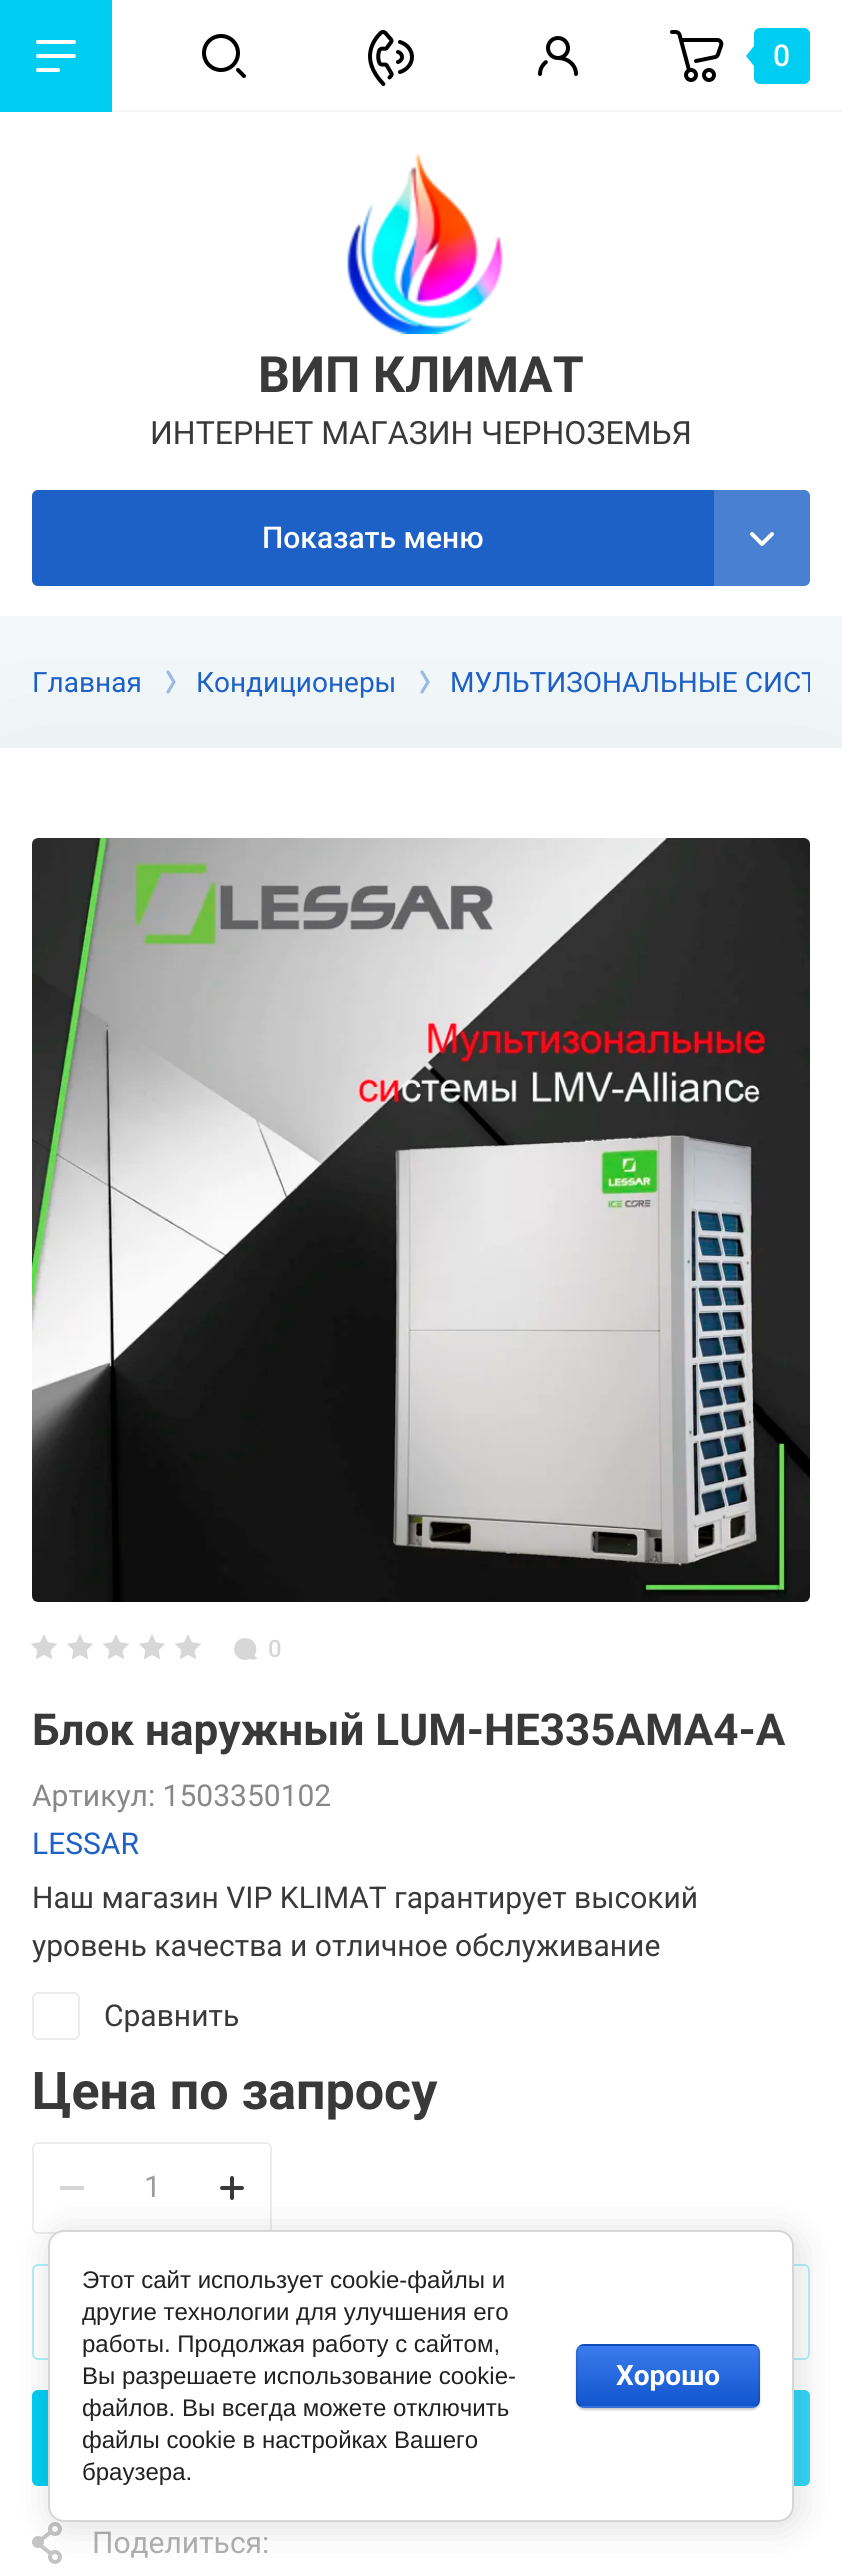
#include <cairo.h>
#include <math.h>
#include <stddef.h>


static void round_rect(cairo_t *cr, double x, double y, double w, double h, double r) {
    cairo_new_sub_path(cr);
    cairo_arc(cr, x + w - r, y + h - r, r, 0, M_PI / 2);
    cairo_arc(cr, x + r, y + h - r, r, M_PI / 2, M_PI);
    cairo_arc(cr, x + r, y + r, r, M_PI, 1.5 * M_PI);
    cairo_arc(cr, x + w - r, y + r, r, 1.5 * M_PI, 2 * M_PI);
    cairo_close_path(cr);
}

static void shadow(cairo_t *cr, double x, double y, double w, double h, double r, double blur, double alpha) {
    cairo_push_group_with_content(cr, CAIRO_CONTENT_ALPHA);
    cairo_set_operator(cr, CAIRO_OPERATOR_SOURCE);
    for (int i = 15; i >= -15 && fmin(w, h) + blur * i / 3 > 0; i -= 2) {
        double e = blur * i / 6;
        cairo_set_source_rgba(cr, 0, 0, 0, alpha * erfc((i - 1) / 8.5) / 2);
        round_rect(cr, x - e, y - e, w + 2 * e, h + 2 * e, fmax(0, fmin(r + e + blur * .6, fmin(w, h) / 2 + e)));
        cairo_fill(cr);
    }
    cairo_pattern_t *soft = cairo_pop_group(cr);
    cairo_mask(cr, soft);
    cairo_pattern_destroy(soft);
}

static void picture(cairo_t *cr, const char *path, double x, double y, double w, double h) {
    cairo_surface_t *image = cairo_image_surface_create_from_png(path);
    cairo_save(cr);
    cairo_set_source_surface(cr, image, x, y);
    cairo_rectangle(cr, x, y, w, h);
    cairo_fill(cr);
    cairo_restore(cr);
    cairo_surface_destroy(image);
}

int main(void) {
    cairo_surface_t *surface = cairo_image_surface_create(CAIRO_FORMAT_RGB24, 842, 2570);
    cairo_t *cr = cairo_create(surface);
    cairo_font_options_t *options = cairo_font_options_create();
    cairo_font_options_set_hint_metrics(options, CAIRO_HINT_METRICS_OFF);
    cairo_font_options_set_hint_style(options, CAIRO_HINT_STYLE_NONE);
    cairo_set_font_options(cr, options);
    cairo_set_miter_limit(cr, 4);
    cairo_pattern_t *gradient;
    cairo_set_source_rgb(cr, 0.949, 0.965, 0.976);
    cairo_paint(cr);
    picture(cr, "img8.png", 166, 670, 10, 24);
    picture(cr, "img8.png", 420, 670, 10, 24);
    cairo_set_source_rgb(cr, 0, 0, 0);
    shadow(cr, 0, 808, 842, 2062, 0, 100, 0.08);
    cairo_set_source_rgb(cr, 1, 1, 1);
    cairo_rectangle(cr, 0, 0, 842, 616);
    cairo_fill(cr);
    cairo_set_source_rgb(cr, 0.961, 0.961, 0.961);
    cairo_rectangle(cr, 112, 110, 730, 2);
    cairo_fill(cr);
    cairo_set_source_rgb(cr, 0, 0.804, 0.949);
    cairo_rectangle(cr, 0, 0, 112, 112);
    cairo_fill(cr);
    picture(cr, "img1.png", 36, 40, 40, 32);
    picture(cr, "img2.png", 202, 34, 44, 44);
    picture(cr, "img3.png", 368, 30, 46, 56);
    picture(cr, "img4.png", 538, 36, 40, 40);
    picture(cr, "img5.png", 670, 30, 54, 52);
    round_rect(cr, 754, 28, 56, 56, 6);
    cairo_fill(cr);
    cairo_new_path(cr);
    cairo_move_to(cr, 754, 46);
    cairo_line_to(cr, 754, 66);
    cairo_line_to(cr, 746, 56);
    cairo_close_path(cr);
    cairo_fill(cr);
    cairo_select_font_face(cr, "Roboto Medium", CAIRO_FONT_SLANT_NORMAL, CAIRO_FONT_WEIGHT_NORMAL);
    cairo_set_font_size(cr, 30);
    cairo_set_source_rgb(cr, 1, 1, 1);
    cairo_move_to(cr, 773, 66);
    cairo_show_text(cr, "0");
    picture(cr, "img6.png", 346, 154, 157, 180);
    cairo_select_font_face(cr, "Roboto", CAIRO_FONT_SLANT_NORMAL, CAIRO_FONT_WEIGHT_BOLD);
    cairo_set_font_size(cr, 50);
    cairo_set_source_rgb(cr, 0.224, 0.224, 0.224);
    cairo_move_to(cr, 258, 392);
    cairo_show_text(cr, "ВИП КЛИМАТ");
    cairo_select_font_face(cr, "Roboto", CAIRO_FONT_SLANT_NORMAL, CAIRO_FONT_WEIGHT_NORMAL);
    cairo_set_font_size(cr, 32);
    cairo_move_to(cr, 150, 444);
    cairo_show_text(cr, "ИНТЕРНЕТ МАГАЗИН ЧЕРНОЗЕМЬЯ");
    cairo_set_source_rgb(cr, 0.114, 0.376, 0.776);
    round_rect(cr, 32, 490, 778, 96, 6);
    cairo_fill(cr);
    cairo_select_font_face(cr, "Roboto Medium", CAIRO_FONT_SLANT_NORMAL, CAIRO_FONT_WEIGHT_NORMAL);
    cairo_set_font_size(cr, 30);
    cairo_set_source_rgb(cr, 1, 1, 1);
    cairo_move_to(cr, 262, 548);
    cairo_show_text(cr, "Показать меню");
    picture(cr, "img7.png", 750, 532, 24, 14);
    cairo_set_source_rgba(cr, 1, 1, 1, 0.2);
    cairo_new_path(cr);
    cairo_move_to(cr, 714, 490);
    cairo_line_to(cr, 804, 490);
    cairo_curve_to(cr, 807.5, 490, 810, 492.5, 810, 496);
    cairo_line_to(cr, 810, 580);
    cairo_curve_to(cr, 810, 583.5, 807.5, 586, 804, 586);
    cairo_line_to(cr, 714, 586);
    cairo_close_path(cr);
    cairo_fill(cr);
    cairo_select_font_face(cr, "Roboto", CAIRO_FONT_SLANT_NORMAL, CAIRO_FONT_WEIGHT_NORMAL);
    cairo_set_font_size(cr, 28);
    cairo_set_source_rgb(cr, 0.114, 0.376, 0.776);
    cairo_move_to(cr, 32, 692);
    cairo_show_text(cr, "Главная");
    cairo_move_to(cr, 196, 692);
    cairo_show_text(cr, "Кондиционеры");
    cairo_save(cr);
    cairo_rectangle(cr, 32, 656, 778, 52);
    cairo_clip(cr);
    cairo_move_to(cr, 450, 692);
    cairo_show_text(cr, "МУЛЬТИЗОНАЛЬНЫЕ СИСТ");
    cairo_restore(cr);
    cairo_set_source_rgb(cr, 1, 1, 1);
    cairo_rectangle(cr, 0, 748, 842, 1822);
    cairo_fill(cr);
    picture(cr, "img9.png", 32, 838, 778, 764);
    picture(cr, "img10.png", 31, 1634, 170, 25);
    picture(cr, "img11.png", 234, 1638, 24, 22);
    cairo_select_font_face(cr, "Roboto Medium", CAIRO_FONT_SLANT_NORMAL, CAIRO_FONT_WEIGHT_NORMAL);
    cairo_set_font_size(cr, 24);
    cairo_set_source_rgb(cr, 0.843, 0.843, 0.843);
    cairo_move_to(cr, 268, 1657);
    cairo_show_text(cr, "0");
    cairo_select_font_face(cr, "Roboto", CAIRO_FONT_SLANT_NORMAL, CAIRO_FONT_WEIGHT_BOLD);
    cairo_set_font_size(cr, 44);
    cairo_set_source_rgb(cr, 0.224, 0.224, 0.224);
    cairo_move_to(cr, 32, 1745);
    cairo_show_text(cr, "Блок наружный LUM-HE335AMA4-A");
    cairo_select_font_face(cr, "Roboto", CAIRO_FONT_SLANT_NORMAL, CAIRO_FONT_WEIGHT_NORMAL);
    cairo_set_font_size(cr, 30);
    cairo_set_source_rgb(cr, 0.533, 0.533, 0.533);
    cairo_move_to(cr, 32, 1806);
    cairo_show_text(cr, "Артикул: 1503350102");
    cairo_set_source_rgb(cr, 0.114, 0.376, 0.776);
    cairo_move_to(cr, 32, 1854);
    cairo_show_text(cr, "LESSAR");
    cairo_set_source_rgb(cr, 0.224, 0.224, 0.224);
    cairo_move_to(cr, 32, 1908);
    cairo_show_text(cr, "Наш магазин VIP KLIMAT гарантирует высокий");
    cairo_move_to(cr, 32, 1956);
    cairo_show_text(cr, "уровень качества и отличное обслуживание");
    round_rect(cr, 33, 1993, 46, 46, 5);
    cairo_set_source_rgb(cr, 0.922, 0.922, 0.922);
    cairo_stroke(cr);
    cairo_set_source_rgb(cr, 0.224, 0.224, 0.224);
    cairo_move_to(cr, 104, 2026);
    cairo_show_text(cr, "Сравнить");
    cairo_select_font_face(cr, "Roboto", CAIRO_FONT_SLANT_NORMAL, CAIRO_FONT_WEIGHT_BOLD);
    cairo_set_font_size(cr, 52);
    cairo_move_to(cr, 32, 2109);
    cairo_show_text(cr, "Цена по запросу");
    round_rect(cr, 33, 2143, 238, 90, 5);
    cairo_set_source_rgb(cr, 0.922, 0.922, 0.922);
    cairo_stroke(cr);
    cairo_set_source_rgb(cr, 0.843, 0.843, 0.843);
    cairo_rectangle(cr, 60, 2186, 24, 4);
    cairo_fill(cr);
    cairo_select_font_face(cr, "Roboto", CAIRO_FONT_SLANT_NORMAL, CAIRO_FONT_WEIGHT_NORMAL);
    cairo_set_font_size(cr, 30);
    cairo_set_source_rgb(cr, 0.612, 0.612, 0.612);
    cairo_move_to(cr, 144, 2197);
    cairo_show_text(cr, "1");
    picture(cr, "img12.png", 220, 2176, 24, 24);
    round_rect(cr, 33, 2265, 776, 94, 5);
    cairo_set_source_rgb(cr, 0.702, 0.941, 0.984);
    cairo_stroke(cr);
    cairo_set_source_rgb(cr, 0, 0.804, 0.949);
    round_rect(cr, 32, 2390, 778, 96, 6);
    cairo_fill(cr);
    cairo_set_source_rgba(cr, 1, 1, 1, 0.2);
    cairo_new_path(cr);
    cairo_move_to(cr, 714, 2390);
    cairo_line_to(cr, 804, 2390);
    cairo_curve_to(cr, 807.5, 2390, 810, 2392.5, 810, 2396);
    cairo_line_to(cr, 810, 2480);
    cairo_curve_to(cr, 810, 2483.5, 807.5, 2486, 804, 2486);
    cairo_line_to(cr, 714, 2486);
    cairo_close_path(cr);
    cairo_fill(cr);
    picture(cr, "img13.png", 32, 2522, 30, 42);
    cairo_set_source_rgb(cr, 0.69, 0.69, 0.69);
    cairo_move_to(cr, 92, 2553);
    cairo_show_text(cr, "Поделиться:");
    cairo_set_source_rgb(cr, 0, 0, 0);
    shadow(cr, 52, 2234, 746, 292, 16, 18, 0.14);
    cairo_set_source_rgb(cr, 1, 1, 1);
    round_rect(cr, 49, 2231, 744, 290, 15);
    cairo_fill_preserve(cr);
    cairo_set_source_rgb(cr, 0.839, 0.839, 0.839);
    cairo_stroke(cr);
    cairo_select_font_face(cr, "Liberation Sans", CAIRO_FONT_SLANT_NORMAL, CAIRO_FONT_WEIGHT_NORMAL);
    cairo_set_font_size(cr, 24);
    cairo_set_source_rgb(cr, 0.129, 0.129, 0.129);
    cairo_move_to(cr, 82, 2288);
    cairo_show_text(cr, "Этот сайт использует cookie-файлы и");
    cairo_move_to(cr, 82, 2320);
    cairo_show_text(cr, "другие технологии для улучшения его");
    cairo_move_to(cr, 82, 2352);
    cairo_show_text(cr, "работы. Продолжая работу с сайтом,");
    cairo_move_to(cr, 82, 2384);
    cairo_show_text(cr, "Вы разрешаете использование cookie-");
    cairo_move_to(cr, 82, 2416);
    cairo_show_text(cr, "файлов. Вы всегда можете отключить");
    cairo_move_to(cr, 82, 2448);
    cairo_show_text(cr, "файлы cookie в настройках Вашего");
    cairo_move_to(cr, 82, 2480);
    cairo_show_text(cr, "браузера.");
    cairo_set_source_rgb(cr, 0, 0, 0);
    shadow(cr, 576, 2346, 184, 64, 8, 1, 0.2);
    cairo_save(cr);
    round_rect(cr, 576, 2344, 184, 64, 8);
    cairo_clip(cr);
    gradient = cairo_pattern_create_linear(668, 2286, 668, 2346);
    cairo_pattern_add_color_stop_rgba(gradient, 0, 0.231, 0.486, 0.937, 1);
    cairo_pattern_add_color_stop_rgba(gradient, 1, 0.067, 0.333, 0.8, 1);
    cairo_set_source(cr, gradient);
    cairo_pattern_destroy(gradient);
    cairo_rectangle(cr, 576, 2344, 184, 2);
    cairo_fill(cr);
    gradient = cairo_pattern_create_linear(668, 2346, 668, 2406);
    cairo_pattern_add_color_stop_rgba(gradient, 0, 0.231, 0.486, 0.937, 1);
    cairo_pattern_add_color_stop_rgba(gradient, 1, 0.067, 0.333, 0.8, 1);
    cairo_set_source(cr, gradient);
    cairo_pattern_destroy(gradient);
    cairo_rectangle(cr, 576, 2346, 184, 60);
    cairo_fill(cr);
    gradient = cairo_pattern_create_linear(668, 2406, 668, 2466);
    cairo_pattern_add_color_stop_rgba(gradient, 0, 0.231, 0.486, 0.937, 1);
    cairo_pattern_add_color_stop_rgba(gradient, 1, 0.067, 0.333, 0.8, 1);
    cairo_set_source(cr, gradient);
    cairo_pattern_destroy(gradient);
    cairo_rectangle(cr, 576, 2406, 184, 2);
    cairo_fill(cr);
    cairo_restore(cr);
    round_rect(cr, 577, 2345, 182, 62, 7);
    cairo_set_source_rgba(cr, 0, 0, 0, 0.1);
    cairo_stroke(cr);
    cairo_select_font_face(cr, "Roboto", CAIRO_FONT_SLANT_NORMAL, CAIRO_FONT_WEIGHT_BOLD);
    cairo_set_font_size(cr, 28);
    cairo_set_source_rgb(cr, 1, 1, 1);
    cairo_move_to(cr, 616, 2385);
    cairo_show_text(cr, "Хорошо");
    cairo_surface_write_to_png(surface, "page.png");
    cairo_font_options_destroy(options);
    cairo_destroy(cr);
    cairo_surface_destroy(surface);
    return 0;
}
